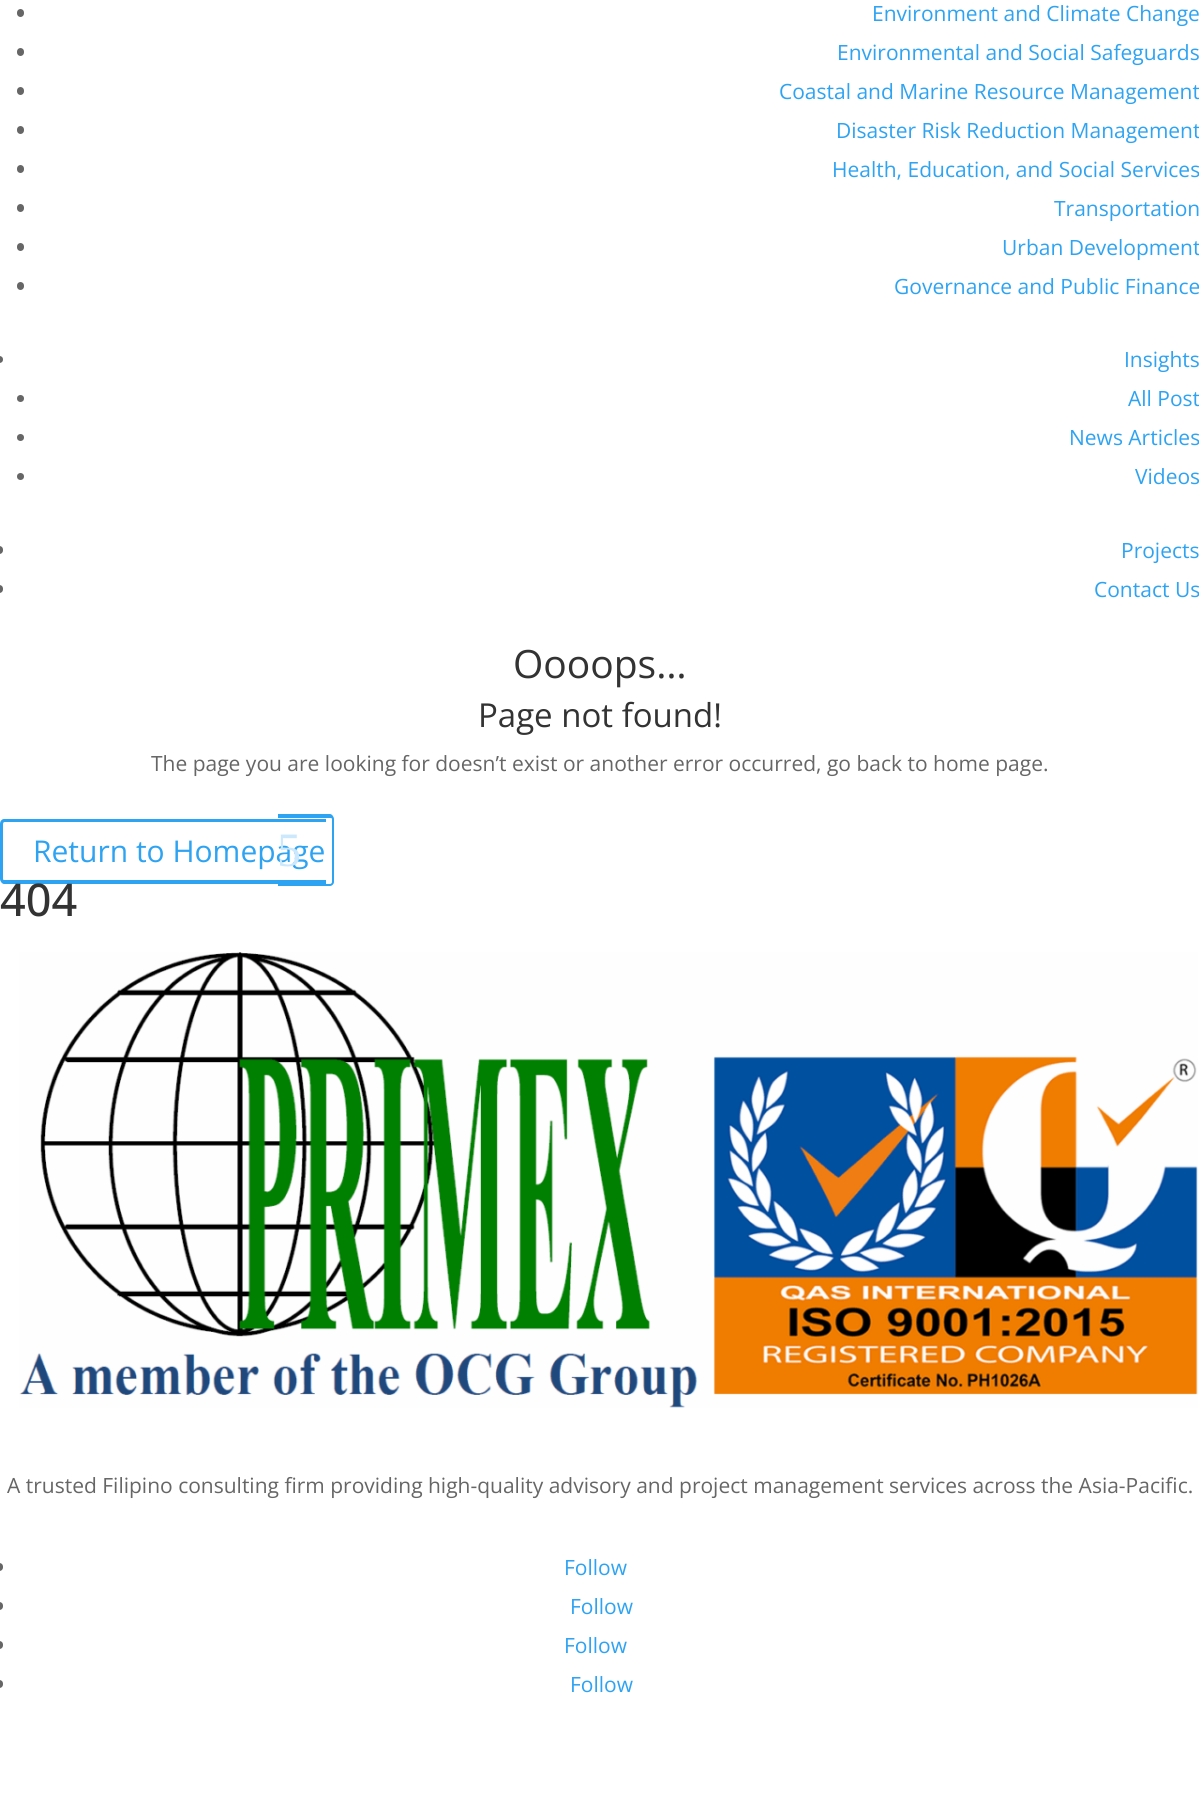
#include <cairo.h>
#include <math.h>
#include <stddef.h>


static void round_rect(cairo_t *cr, double x, double y, double w, double h, double r) {
    cairo_new_sub_path(cr);
    cairo_arc(cr, x + w - r, y + h - r, r, 0, M_PI / 2);
    cairo_arc(cr, x + r, y + h - r, r, M_PI / 2, M_PI);
    cairo_arc(cr, x + r, y + r, r, M_PI, 1.5 * M_PI);
    cairo_arc(cr, x + w - r, y + r, r, 1.5 * M_PI, 2 * M_PI);
    cairo_close_path(cr);
}

static void picture(cairo_t *cr, const char *path, double x, double y, double w, double h) {
    cairo_surface_t *image = cairo_image_surface_create_from_png(path);
    cairo_save(cr);
    cairo_set_source_surface(cr, image, x, y);
    cairo_rectangle(cr, x, y, w, h);
    cairo_fill(cr);
    cairo_restore(cr);
    cairo_surface_destroy(image);
}

int main(void) {
    cairo_surface_t *surface = cairo_image_surface_create(CAIRO_FORMAT_RGB24, 1199, 1793);
    cairo_t *cr = cairo_create(surface);
    cairo_font_options_t *options = cairo_font_options_create();
    cairo_font_options_set_hint_metrics(options, CAIRO_HINT_METRICS_OFF);
    cairo_font_options_set_hint_style(options, CAIRO_HINT_STYLE_NONE);
    cairo_set_font_options(cr, options);
    cairo_set_miter_limit(cr, 4);
    cairo_set_source_rgb(cr, 1, 1, 1);
    cairo_paint(cr);
    cairo_set_source_rgb(cr, 0.4, 0.4, 0.4);
    round_rect(cr, 17, 9, 7, 8, 3.5);
    cairo_fill(cr);
    cairo_select_font_face(cr, "Open Sans", CAIRO_FONT_SLANT_NORMAL, CAIRO_FONT_WEIGHT_NORMAL);
    cairo_set_font_size(cr, 21);
    cairo_set_source_rgb(cr, 0.18, 0.639, 0.949);
    cairo_move_to(cr, 872, 21);
    cairo_show_text(cr, "Environment and Climate Change");
    cairo_set_source_rgb(cr, 0.4, 0.4, 0.4);
    round_rect(cr, 17, 48, 7, 8, 3.5);
    cairo_fill(cr);
    cairo_set_source_rgb(cr, 0.18, 0.639, 0.949);
    cairo_move_to(cr, 837, 60);
    cairo_show_text(cr, "Environmental and Social Safeguards");
    cairo_set_source_rgb(cr, 0.4, 0.4, 0.4);
    round_rect(cr, 17, 87, 7, 8, 3.5);
    cairo_fill(cr);
    cairo_set_source_rgb(cr, 0.18, 0.639, 0.949);
    cairo_move_to(cr, 779, 99);
    cairo_show_text(cr, "Coastal and Marine Resource Management");
    cairo_set_source_rgb(cr, 0.4, 0.4, 0.4);
    round_rect(cr, 17, 126, 7, 8, 3.5);
    cairo_fill(cr);
    cairo_set_source_rgb(cr, 0.18, 0.639, 0.949);
    cairo_move_to(cr, 836, 138);
    cairo_show_text(cr, "Disaster Risk Reduction Management");
    cairo_set_source_rgb(cr, 0.4, 0.4, 0.4);
    round_rect(cr, 17, 165, 7, 8, 3.5);
    cairo_fill(cr);
    cairo_set_source_rgb(cr, 0.18, 0.639, 0.949);
    cairo_move_to(cr, 832, 177);
    cairo_show_text(cr, "Health, Education, and Social Services");
    cairo_set_source_rgb(cr, 0.4, 0.4, 0.4);
    round_rect(cr, 17, 204, 7, 8, 3.5);
    cairo_fill(cr);
    cairo_set_source_rgb(cr, 0.18, 0.639, 0.949);
    cairo_move_to(cr, 1054, 216);
    cairo_show_text(cr, "Transportation");
    cairo_set_source_rgb(cr, 0.4, 0.4, 0.4);
    round_rect(cr, 17, 243, 7, 8, 3.5);
    cairo_fill(cr);
    cairo_set_source_rgb(cr, 0.18, 0.639, 0.949);
    cairo_move_to(cr, 1002, 255);
    cairo_show_text(cr, "Urban Development");
    cairo_set_source_rgb(cr, 0.4, 0.4, 0.4);
    round_rect(cr, 17, 282, 7, 8, 3.5);
    cairo_fill(cr);
    cairo_set_source_rgb(cr, 0.18, 0.639, 0.949);
    cairo_move_to(cr, 894, 294);
    cairo_show_text(cr, "Governance and Public Finance");
    cairo_set_source_rgb(cr, 0.4, 0.4, 0.4);
    cairo_new_path(cr);
    cairo_arc(cr, -0.5, 359.5, 3.5, 0, 2 * M_PI);
    cairo_fill(cr);
    cairo_set_source_rgb(cr, 0.18, 0.639, 0.949);
    cairo_move_to(cr, 1124, 367);
    cairo_show_text(cr, "Insights");
    cairo_set_source_rgb(cr, 0.4, 0.4, 0.4);
    cairo_new_path(cr);
    cairo_arc(cr, 20.5, 398.5, 3.5, 0, 2 * M_PI);
    cairo_fill(cr);
    cairo_set_source_rgb(cr, 0.18, 0.639, 0.949);
    cairo_move_to(cr, 1128, 406);
    cairo_show_text(cr, "All Post");
    cairo_set_source_rgb(cr, 0.4, 0.4, 0.4);
    cairo_new_path(cr);
    cairo_arc(cr, 20.5, 437.5, 3.5, 0, 2 * M_PI);
    cairo_fill(cr);
    cairo_set_source_rgb(cr, 0.18, 0.639, 0.949);
    cairo_move_to(cr, 1069, 445);
    cairo_show_text(cr, "News Articles");
    cairo_set_source_rgb(cr, 0.4, 0.4, 0.4);
    cairo_new_path(cr);
    cairo_arc(cr, 20.5, 476.5, 3.5, 0, 2 * M_PI);
    cairo_fill(cr);
    cairo_set_source_rgb(cr, 0.18, 0.639, 0.949);
    cairo_move_to(cr, 1135, 484);
    cairo_show_text(cr, "Videos");
    cairo_set_source_rgb(cr, 0.4, 0.4, 0.4);
    round_rect(cr, -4, 546, 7, 8, 3.5);
    cairo_fill(cr);
    cairo_set_source_rgb(cr, 0.18, 0.639, 0.949);
    cairo_move_to(cr, 1121, 558);
    cairo_show_text(cr, "Projects");
    cairo_set_source_rgb(cr, 0.4, 0.4, 0.4);
    round_rect(cr, -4, 585, 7, 8, 3.5);
    cairo_fill(cr);
    cairo_set_source_rgb(cr, 0.18, 0.639, 0.949);
    cairo_move_to(cr, 1094, 597);
    cairo_show_text(cr, "Contact Us");
    cairo_set_font_size(cr, 39);
    cairo_set_source_rgb(cr, 0.2, 0.2, 0.2);
    cairo_move_to(cr, 513, 678);
    cairo_show_text(cr, "Oooops…");
    cairo_set_font_size(cr, 33);
    cairo_move_to(cr, 478, 727);
    cairo_show_text(cr, "Page not found!");
    cairo_set_font_size(cr, 21);
    cairo_set_source_rgb(cr, 0.4, 0.4, 0.4);
    cairo_move_to(cr, 151, 771);
    cairo_show_text(cr, "The page you are looking for doesn’t exist or another error occurred, go back to home page.");
    cairo_set_source_rgb(cr, 0.18, 0.639, 0.949);
    cairo_set_fill_rule(cr, CAIRO_FILL_RULE_EVEN_ODD);
    cairo_new_path(cr);
    cairo_move_to(cr, 4, 819);
    cairo_line_to(cr, 326, 819);
    cairo_line_to(cr, 326, 884);
    cairo_line_to(cr, 4, 884);
    cairo_curve_to(cr, 2, 884, 0, 881, 0, 879);
    cairo_line_to(cr, 0, 824);
    cairo_curve_to(cr, 0, 821, 2, 819, 4, 819);
    cairo_close_path(cr);
    cairo_move_to(cr, 4, 822);
    cairo_line_to(cr, 326, 822);
    cairo_line_to(cr, 326, 880);
    cairo_line_to(cr, 4, 880);
    cairo_curve_to(cr, 4, 880, 3, 880, 3, 879);
    cairo_line_to(cr, 3, 824);
    cairo_curve_to(cr, 3, 823, 4, 822, 4, 822);
    cairo_close_path(cr);
    cairo_fill(cr);
    cairo_new_path(cr);
    cairo_move_to(cr, 278, 814);
    cairo_line_to(cr, 330, 814);
    cairo_curve_to(cr, 332, 814, 334, 817, 334, 819);
    cairo_line_to(cr, 334, 882);
    cairo_curve_to(cr, 334, 884, 332, 886, 330, 886);
    cairo_line_to(cr, 278, 886);
    cairo_close_path(cr);
    cairo_move_to(cr, 278, 818);
    cairo_line_to(cr, 330, 818);
    cairo_curve_to(cr, 331, 818, 332, 818, 332, 819);
    cairo_line_to(cr, 332, 882);
    cairo_curve_to(cr, 332, 883, 331, 884, 330, 884);
    cairo_line_to(cr, 278, 884);
    cairo_close_path(cr);
    cairo_fill(cr);
    cairo_set_font_size(cr, 30);
    cairo_move_to(cr, 33, 862);
    cairo_show_text(cr, "Return to Homepage");
    cairo_select_font_face(cr, "Liberation Serif", CAIRO_FONT_SLANT_NORMAL, CAIRO_FONT_WEIGHT_NORMAL);
    cairo_set_font_size(cr, 48);
    cairo_set_source_rgb(cr, 0.796, 0.91, 0.988);
    cairo_move_to(cr, 277, 866);
    cairo_show_text(cr, "5");
    cairo_select_font_face(cr, "Open Sans Medium", CAIRO_FONT_SLANT_NORMAL, CAIRO_FONT_WEIGHT_NORMAL);
    cairo_set_font_size(cr, 45);
    cairo_set_source_rgb(cr, 0.2, 0.2, 0.2);
    cairo_move_to(cr, 0, 916);
    cairo_show_text(cr, "404");
    picture(cr, "img1.png", 19, 952, 1179, 456);
    cairo_select_font_face(cr, "Open Sans", CAIRO_FONT_SLANT_NORMAL, CAIRO_FONT_WEIGHT_NORMAL);
    cairo_set_font_size(cr, 21);
    cairo_set_source_rgb(cr, 0.4, 0.4, 0.4);
    cairo_move_to(cr, 7, 1493);
    cairo_show_text(cr, "A trusted Filipino consulting firm providing high-quality advisory and project management services across the Asia-Pacific.");
    round_rect(cr, -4, 1563, 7, 8, 3.5);
    cairo_fill(cr);
    cairo_set_source_rgb(cr, 0.18, 0.639, 0.949);
    cairo_move_to(cr, 564, 1575);
    cairo_show_text(cr, "Follow");
    cairo_set_source_rgb(cr, 0.4, 0.4, 0.4);
    round_rect(cr, -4, 1602, 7, 8, 3.5);
    cairo_fill(cr);
    cairo_set_source_rgb(cr, 0.18, 0.639, 0.949);
    cairo_move_to(cr, 570, 1614);
    cairo_show_text(cr, "Follow");
    cairo_set_source_rgb(cr, 0.4, 0.4, 0.4);
    round_rect(cr, -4, 1641, 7, 8, 3.5);
    cairo_fill(cr);
    cairo_set_source_rgb(cr, 0.18, 0.639, 0.949);
    cairo_move_to(cr, 564, 1653);
    cairo_show_text(cr, "Follow");
    cairo_set_source_rgb(cr, 0.4, 0.4, 0.4);
    round_rect(cr, -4, 1680, 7, 8, 3.5);
    cairo_fill(cr);
    cairo_set_source_rgb(cr, 0.18, 0.639, 0.949);
    cairo_move_to(cr, 570, 1692);
    cairo_show_text(cr, "Follow");
    cairo_surface_write_to_png(surface, "page.png");
    cairo_font_options_destroy(options);
    cairo_destroy(cr);
    cairo_surface_destroy(surface);
    return 0;
}
